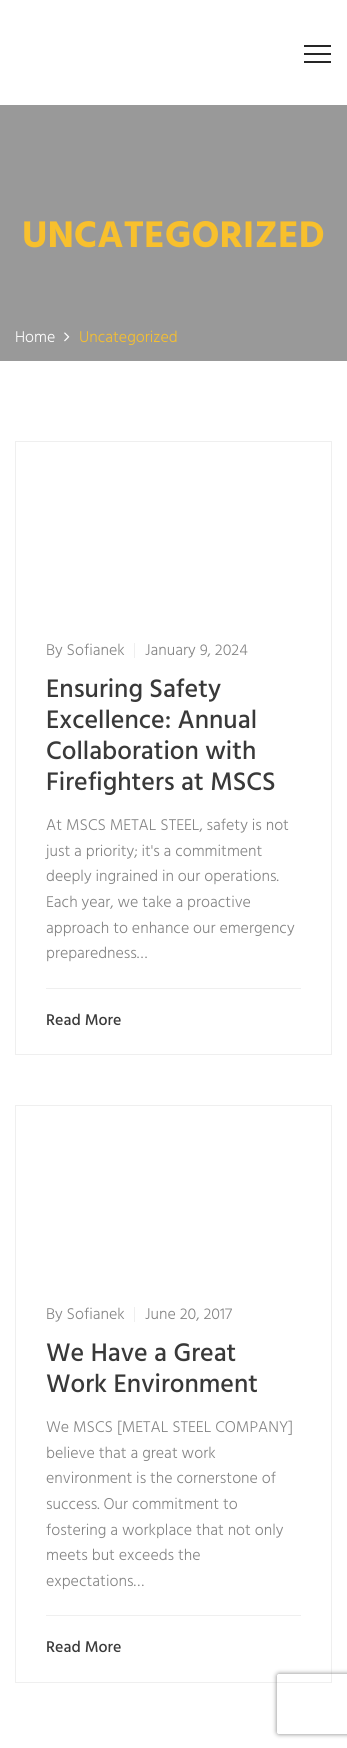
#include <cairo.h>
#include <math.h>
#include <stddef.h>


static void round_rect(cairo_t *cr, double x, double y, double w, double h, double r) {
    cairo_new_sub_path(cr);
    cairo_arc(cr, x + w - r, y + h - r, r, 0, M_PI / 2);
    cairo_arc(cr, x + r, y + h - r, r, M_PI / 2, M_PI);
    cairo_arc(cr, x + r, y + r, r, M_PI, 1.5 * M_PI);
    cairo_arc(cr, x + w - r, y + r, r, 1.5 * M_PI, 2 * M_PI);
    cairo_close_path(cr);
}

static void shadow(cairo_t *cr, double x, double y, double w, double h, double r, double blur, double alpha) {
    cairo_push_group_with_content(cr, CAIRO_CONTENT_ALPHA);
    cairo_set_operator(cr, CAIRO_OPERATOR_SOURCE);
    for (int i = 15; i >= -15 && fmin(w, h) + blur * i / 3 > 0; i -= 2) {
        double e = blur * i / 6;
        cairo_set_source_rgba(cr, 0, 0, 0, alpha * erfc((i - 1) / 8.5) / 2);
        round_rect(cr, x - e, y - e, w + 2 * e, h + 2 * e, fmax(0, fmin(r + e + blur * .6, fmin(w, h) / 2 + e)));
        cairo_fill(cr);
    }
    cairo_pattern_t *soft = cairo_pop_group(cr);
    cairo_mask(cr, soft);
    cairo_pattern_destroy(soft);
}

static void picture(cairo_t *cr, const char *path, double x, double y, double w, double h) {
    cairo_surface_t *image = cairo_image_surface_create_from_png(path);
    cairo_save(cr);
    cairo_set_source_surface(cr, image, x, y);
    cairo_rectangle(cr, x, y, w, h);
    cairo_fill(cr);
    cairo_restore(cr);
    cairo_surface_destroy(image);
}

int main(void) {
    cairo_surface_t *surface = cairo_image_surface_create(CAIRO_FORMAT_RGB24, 347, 1748);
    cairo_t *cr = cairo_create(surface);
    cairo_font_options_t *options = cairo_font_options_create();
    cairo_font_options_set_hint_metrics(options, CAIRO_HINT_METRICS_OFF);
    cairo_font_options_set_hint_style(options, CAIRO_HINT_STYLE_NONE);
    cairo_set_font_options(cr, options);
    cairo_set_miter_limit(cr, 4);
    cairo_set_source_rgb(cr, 1, 1, 1);
    cairo_paint(cr);
    cairo_set_source_rgb(cr, 0.145, 0.145, 0.145);
    cairo_rectangle(cr, 304, 53, 27, 2);
    cairo_fill(cr);
    cairo_rectangle(cr, 304, 45, 27, 2);
    cairo_fill(cr);
    cairo_rectangle(cr, 304, 61, 27, 2);
    cairo_fill(cr);
    cairo_set_source_rgb(cr, 0.6, 0.6, 0.6);
    cairo_rectangle(cr, 0, 105, 347, 256);
    cairo_fill(cr);
    cairo_select_font_face(cr, "Hind", CAIRO_FONT_SLANT_NORMAL, CAIRO_FONT_WEIGHT_BOLD);
    cairo_set_font_size(cr, 38);
    cairo_set_source_rgb(cr, 0.969, 0.753, 0.176);
    cairo_move_to(cr, 22, 247);
    cairo_show_text(cr, "UNCATEGORIZED");
    cairo_select_font_face(cr, "Hind Light", CAIRO_FONT_SLANT_NORMAL, CAIRO_FONT_WEIGHT_NORMAL);
    cairo_set_font_size(cr, 16);
    cairo_set_source_rgb(cr, 1, 1, 1);
    cairo_move_to(cr, 15, 342);
    cairo_show_text(cr, "Home");
    picture(cr, "img1.png", 64, 332, 6, 10);
    cairo_set_source_rgb(cr, 0.969, 0.753, 0.176);
    cairo_move_to(cr, 79, 342);
    cairo_show_text(cr, "Uncategorized");
    cairo_rectangle(cr, 15.5, 441.5, 316, 613);
    cairo_set_source_rgb(cr, 0.937, 0.937, 0.937);
    cairo_set_line_width(cr, 1);
    cairo_stroke(cr);
    cairo_set_source_rgb(cr, 0.518, 0.518, 0.518);
    cairo_move_to(cr, 46, 655);
    cairo_show_text(cr, "By Sofianek");
    cairo_set_source_rgb(cr, 0.937, 0.937, 0.937);
    cairo_rectangle(cr, 134, 643, 1, 15);
    cairo_fill(cr);
    cairo_set_source_rgb(cr, 0.518, 0.518, 0.518);
    cairo_move_to(cr, 145, 655);
    cairo_show_text(cr, "January 9, 2024");
    cairo_select_font_face(cr, "Hind Medium", CAIRO_FONT_SLANT_NORMAL, CAIRO_FONT_WEIGHT_NORMAL);
    cairo_set_font_size(cr, 26);
    cairo_set_source_rgb(cr, 0.224, 0.224, 0.224);
    cairo_move_to(cr, 46, 697);
    cairo_show_text(cr, "Ensuring Safety");
    cairo_move_to(cr, 46, 728);
    cairo_show_text(cr, "Excellence: Annual");
    cairo_move_to(cr, 46, 759);
    cairo_show_text(cr, "Collaboration with");
    cairo_move_to(cr, 46, 790);
    cairo_show_text(cr, "Firefighters at MSCS");
    cairo_select_font_face(cr, "Hind Light", CAIRO_FONT_SLANT_NORMAL, CAIRO_FONT_WEIGHT_NORMAL);
    cairo_set_font_size(cr, 16);
    cairo_set_source_rgb(cr, 0.518, 0.518, 0.518);
    cairo_move_to(cr, 46, 830);
    cairo_show_text(cr, "At MSCS METAL STEEL, safety is not");
    cairo_move_to(cr, 46, 856);
    cairo_show_text(cr, "just a priority; it's a commitment");
    cairo_move_to(cr, 46, 881);
    cairo_show_text(cr, "deeply ingrained in our operations.");
    cairo_move_to(cr, 46, 907);
    cairo_show_text(cr, "Each year, we take a proactive");
    cairo_move_to(cr, 46, 933);
    cairo_show_text(cr, "approach to enhance our emergency");
    cairo_move_to(cr, 46, 958);
    cairo_show_text(cr, "preparedness…");
    cairo_set_source_rgb(cr, 0.937, 0.937, 0.937);
    cairo_rectangle(cr, 46, 988, 255, 1);
    cairo_fill(cr);
    cairo_select_font_face(cr, "Hind Medium", CAIRO_FONT_SLANT_NORMAL, CAIRO_FONT_WEIGHT_NORMAL);
    cairo_set_source_rgb(cr, 0.224, 0.224, 0.224);
    cairo_move_to(cr, 46, 1025);
    cairo_show_text(cr, "Read More");
    cairo_rectangle(cr, 15.5, 1105.5, 316, 577);
    cairo_set_source_rgb(cr, 0.937, 0.937, 0.937);
    cairo_stroke(cr);
    cairo_select_font_face(cr, "Hind Light", CAIRO_FONT_SLANT_NORMAL, CAIRO_FONT_WEIGHT_NORMAL);
    cairo_set_source_rgb(cr, 0.518, 0.518, 0.518);
    cairo_move_to(cr, 46, 1319);
    cairo_show_text(cr, "By Sofianek");
    cairo_set_source_rgb(cr, 0.937, 0.937, 0.937);
    cairo_rectangle(cr, 134, 1307, 1, 15);
    cairo_fill(cr);
    cairo_set_source_rgb(cr, 0.518, 0.518, 0.518);
    cairo_move_to(cr, 145, 1319);
    cairo_show_text(cr, "June 20, 2017");
    cairo_select_font_face(cr, "Hind Medium", CAIRO_FONT_SLANT_NORMAL, CAIRO_FONT_WEIGHT_NORMAL);
    cairo_set_font_size(cr, 26);
    cairo_set_source_rgb(cr, 0.224, 0.224, 0.224);
    cairo_move_to(cr, 46, 1361);
    cairo_show_text(cr, "We Have a Great");
    cairo_move_to(cr, 46, 1392);
    cairo_show_text(cr, "Work Environment");
    cairo_select_font_face(cr, "Hind Light", CAIRO_FONT_SLANT_NORMAL, CAIRO_FONT_WEIGHT_NORMAL);
    cairo_set_font_size(cr, 16);
    cairo_set_source_rgb(cr, 0.518, 0.518, 0.518);
    cairo_move_to(cr, 46, 1432);
    cairo_show_text(cr, "We MSCS [METAL STEEL COMPANY]");
    cairo_move_to(cr, 46, 1458);
    cairo_show_text(cr, "believe that a great work");
    cairo_move_to(cr, 46, 1483);
    cairo_show_text(cr, "environment is the cornerstone of");
    cairo_move_to(cr, 46, 1509);
    cairo_show_text(cr, "success. Our commitment to");
    cairo_move_to(cr, 46, 1535);
    cairo_show_text(cr, "fostering a workplace that not only");
    cairo_move_to(cr, 46, 1560);
    cairo_show_text(cr, "meets but exceeds the");
    cairo_move_to(cr, 46, 1586);
    cairo_show_text(cr, "expectations…");
    cairo_set_source_rgb(cr, 0.937, 0.937, 0.937);
    cairo_rectangle(cr, 46, 1615, 255, 1);
    cairo_fill(cr);
    cairo_select_font_face(cr, "Hind Medium", CAIRO_FONT_SLANT_NORMAL, CAIRO_FONT_WEIGHT_NORMAL);
    cairo_set_source_rgb(cr, 0.224, 0.224, 0.224);
    cairo_move_to(cr, 46, 1652);
    cairo_show_text(cr, "Read More");
    cairo_save(cr);
    cairo_set_fill_rule(cr, CAIRO_FILL_RULE_EVEN_ODD);
    cairo_new_path(cr);
    cairo_move_to(cr, 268, 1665);
    cairo_line_to(cr, 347, 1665);
    cairo_line_to(cr, 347, 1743);
    cairo_line_to(cr, 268, 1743);
    cairo_close_path(cr);
    cairo_move_to(cr, 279, 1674);
    cairo_line_to(cr, 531, 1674);
    cairo_curve_to(cr, 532, 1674, 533, 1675, 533, 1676);
    cairo_line_to(cr, 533, 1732);
    cairo_curve_to(cr, 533, 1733, 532, 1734, 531, 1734);
    cairo_line_to(cr, 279, 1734);
    cairo_curve_to(cr, 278, 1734, 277, 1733, 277, 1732);
    cairo_line_to(cr, 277, 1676);
    cairo_curve_to(cr, 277, 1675, 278, 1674, 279, 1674);
    cairo_close_path(cr);
    cairo_clip(cr);
    cairo_set_source_rgb(cr, 0.502, 0.502, 0.502);
    shadow(cr, 277, 1674, 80, 60, 2, 2.5, 1);
    cairo_restore(cr);
    cairo_surface_write_to_png(surface, "page.png");
    cairo_font_options_destroy(options);
    cairo_destroy(cr);
    cairo_surface_destroy(surface);
    return 0;
}
